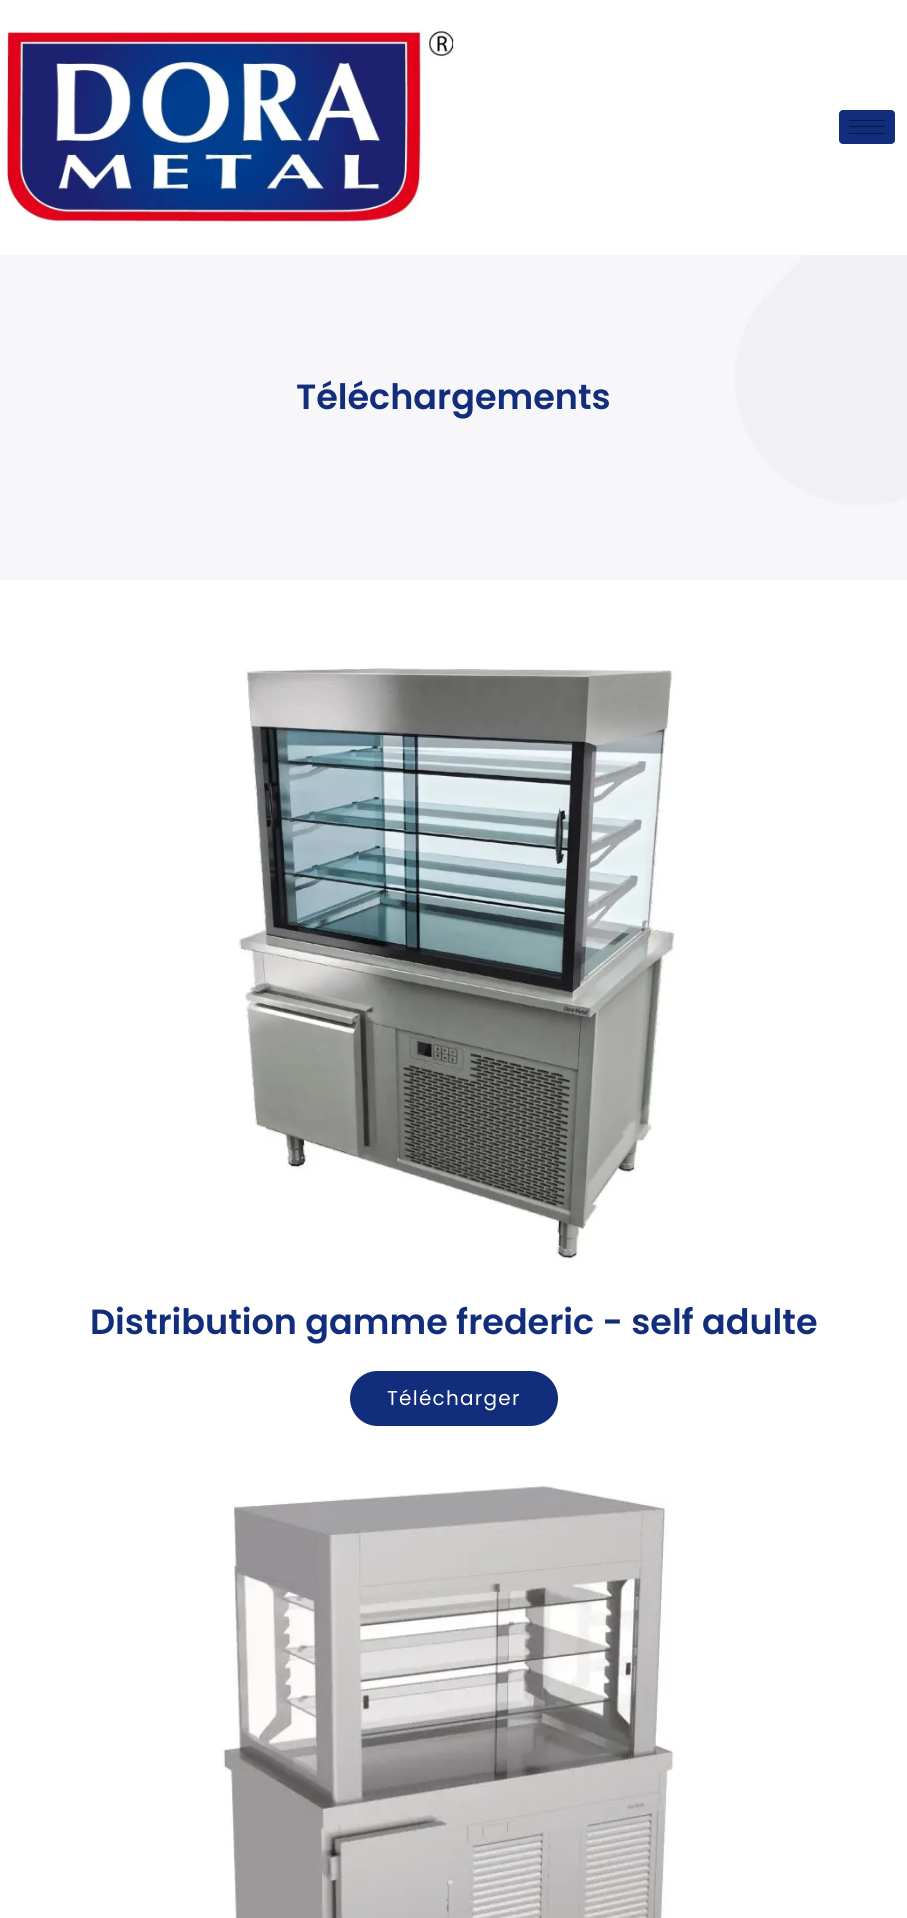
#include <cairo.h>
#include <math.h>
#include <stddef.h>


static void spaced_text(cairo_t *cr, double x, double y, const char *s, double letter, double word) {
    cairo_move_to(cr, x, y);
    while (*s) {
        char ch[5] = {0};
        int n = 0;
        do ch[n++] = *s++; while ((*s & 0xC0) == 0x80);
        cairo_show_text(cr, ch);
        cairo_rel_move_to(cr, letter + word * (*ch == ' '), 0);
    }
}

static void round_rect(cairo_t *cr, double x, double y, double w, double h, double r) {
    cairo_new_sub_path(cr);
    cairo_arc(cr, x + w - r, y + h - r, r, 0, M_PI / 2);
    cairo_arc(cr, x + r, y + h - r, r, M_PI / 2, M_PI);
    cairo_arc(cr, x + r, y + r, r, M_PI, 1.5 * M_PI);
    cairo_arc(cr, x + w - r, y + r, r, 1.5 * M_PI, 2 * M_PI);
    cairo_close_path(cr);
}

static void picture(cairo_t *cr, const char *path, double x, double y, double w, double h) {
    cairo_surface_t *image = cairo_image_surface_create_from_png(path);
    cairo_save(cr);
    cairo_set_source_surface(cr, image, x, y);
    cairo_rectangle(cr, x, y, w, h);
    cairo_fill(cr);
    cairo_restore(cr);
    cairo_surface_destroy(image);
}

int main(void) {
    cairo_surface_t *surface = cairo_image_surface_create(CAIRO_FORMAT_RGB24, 907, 1918);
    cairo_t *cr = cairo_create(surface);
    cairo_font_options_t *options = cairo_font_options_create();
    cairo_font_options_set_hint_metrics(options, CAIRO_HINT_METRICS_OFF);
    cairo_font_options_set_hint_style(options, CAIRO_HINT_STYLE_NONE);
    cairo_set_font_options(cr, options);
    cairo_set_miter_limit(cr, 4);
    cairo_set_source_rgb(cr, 1, 1, 1);
    cairo_paint(cr);
    picture(cr, "img1.png", 6, 30, 448, 195);
    cairo_set_source_rgb(cr, 0.071, 0.176, 0.486);
    round_rect(cr, 839, 110, 56, 34, 4);
    cairo_fill(cr);
    cairo_set_source_rgb(cr, 0.035, 0.09, 0.243);
    cairo_rectangle(cr, 849, 120, 36, 1);
    cairo_fill(cr);
    cairo_rectangle(cr, 849, 126, 36, 1);
    cairo_fill(cr);
    cairo_rectangle(cr, 849, 133, 36, 1);
    cairo_fill(cr);
    picture(cr, "img2.png", 0, 255, 907, 325);
    cairo_select_font_face(cr, "Poppins SemiBold", CAIRO_FONT_SLANT_NORMAL, CAIRO_FONT_WEIGHT_NORMAL);
    cairo_set_font_size(cr, 35);
    cairo_set_source_rgb(cr, 0.071, 0.176, 0.486);
    cairo_move_to(cr, 296, 409);
    cairo_show_text(cr, "Téléchargements");
    picture(cr, "img3.png", 239, 667, 436, 594);
    cairo_move_to(cr, 90, 1334);
    cairo_show_text(cr, "Distribution gamme frederic - self adulte");
    round_rect(cr, 350, 1371, 208, 55, 27.5);
    cairo_fill(cr);
    cairo_select_font_face(cr, "Poppins", CAIRO_FONT_SLANT_NORMAL, CAIRO_FONT_WEIGHT_NORMAL);
    cairo_set_font_size(cr, 20);
    cairo_set_source_rgb(cr, 1, 1, 1);
    spaced_text(cr, 387, 1405, "Télécharger", 1.25, 0);
    picture(cr, "img4.png", 222, 1484, 452, 434);
    cairo_surface_write_to_png(surface, "page.png");
    cairo_font_options_destroy(options);
    cairo_destroy(cr);
    cairo_surface_destroy(surface);
    return 0;
}
